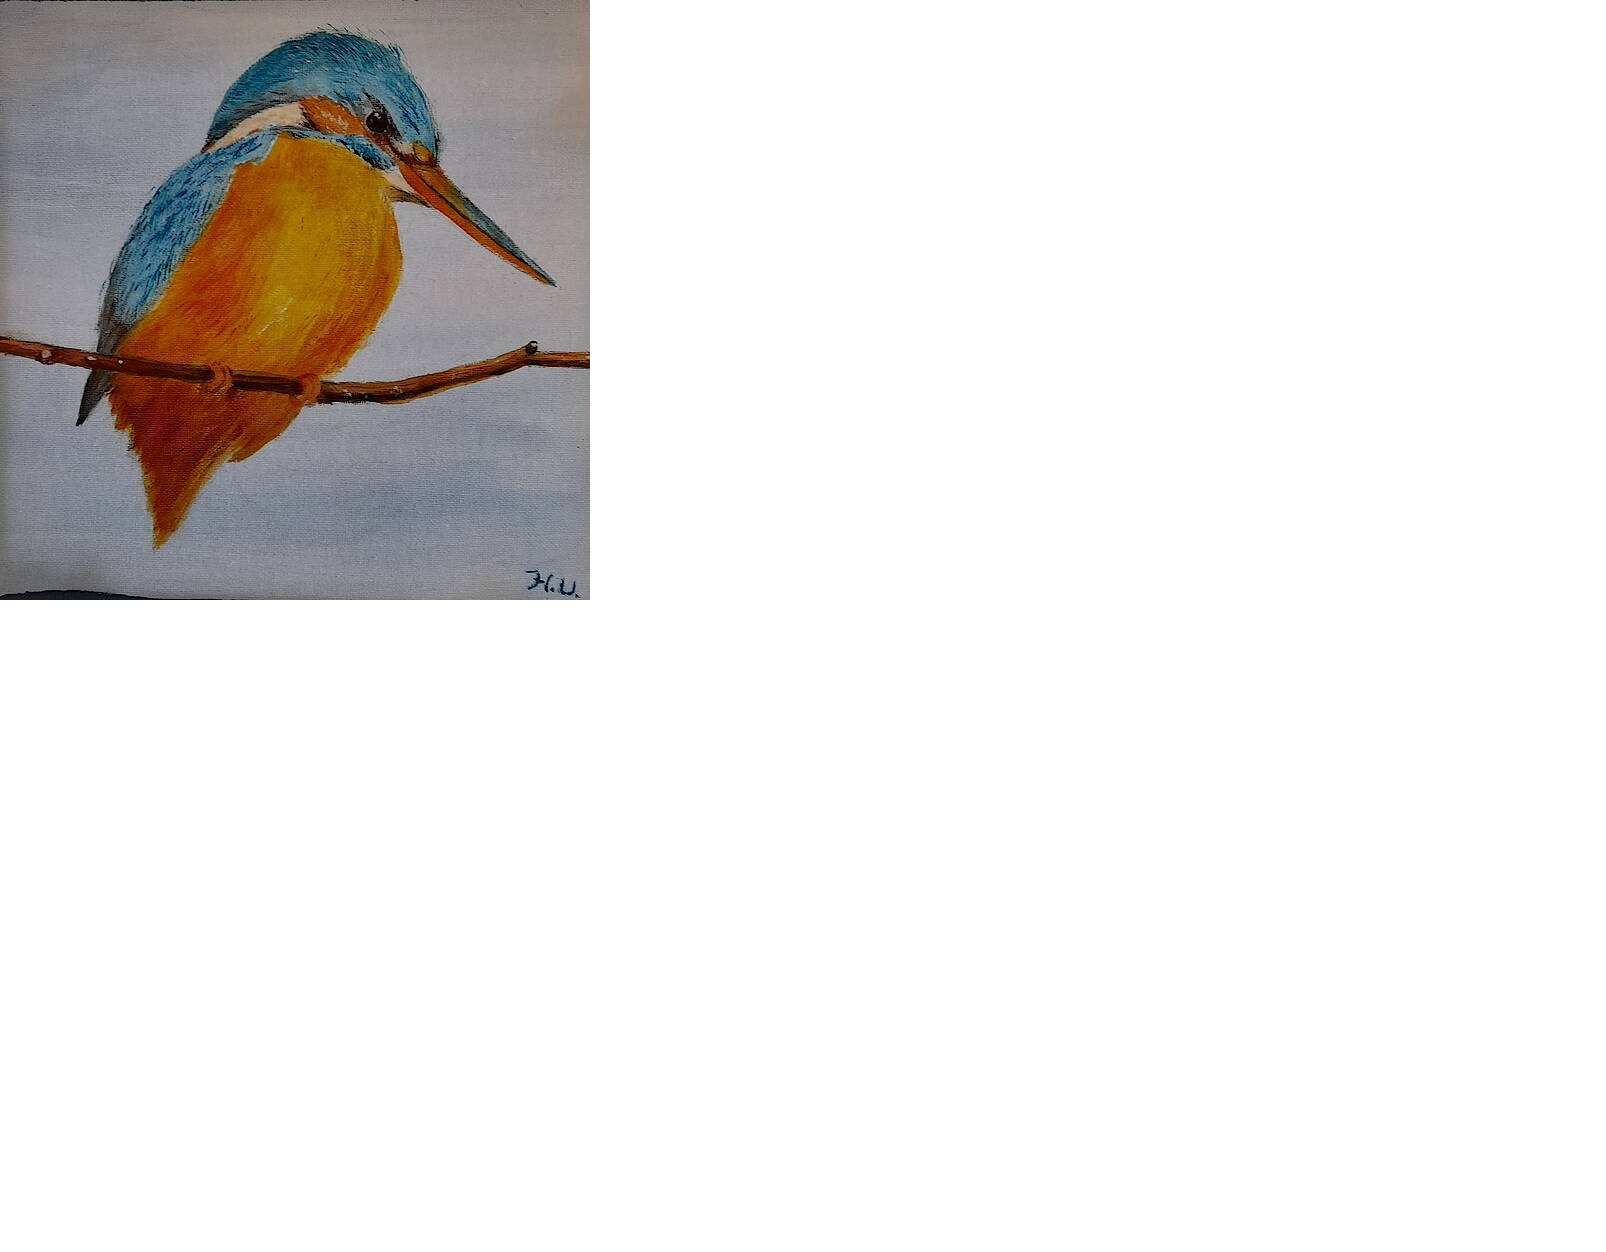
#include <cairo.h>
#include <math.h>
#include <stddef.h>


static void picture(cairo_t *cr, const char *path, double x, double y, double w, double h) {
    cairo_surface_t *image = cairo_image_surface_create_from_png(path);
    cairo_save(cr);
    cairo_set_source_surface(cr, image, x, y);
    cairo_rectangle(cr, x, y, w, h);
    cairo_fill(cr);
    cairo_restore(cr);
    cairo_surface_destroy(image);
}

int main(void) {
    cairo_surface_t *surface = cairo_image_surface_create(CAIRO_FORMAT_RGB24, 1606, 1252);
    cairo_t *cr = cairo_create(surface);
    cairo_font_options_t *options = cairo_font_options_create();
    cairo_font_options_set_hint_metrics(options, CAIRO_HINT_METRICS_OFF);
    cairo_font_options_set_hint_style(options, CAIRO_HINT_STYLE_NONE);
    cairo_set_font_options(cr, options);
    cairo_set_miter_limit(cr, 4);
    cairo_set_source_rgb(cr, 1, 1, 1);
    cairo_paint(cr);
    picture(cr, "img1.png", 0, 0, 590, 600);
    cairo_surface_write_to_png(surface, "page.png");
    cairo_font_options_destroy(options);
    cairo_destroy(cr);
    cairo_surface_destroy(surface);
    return 0;
}
